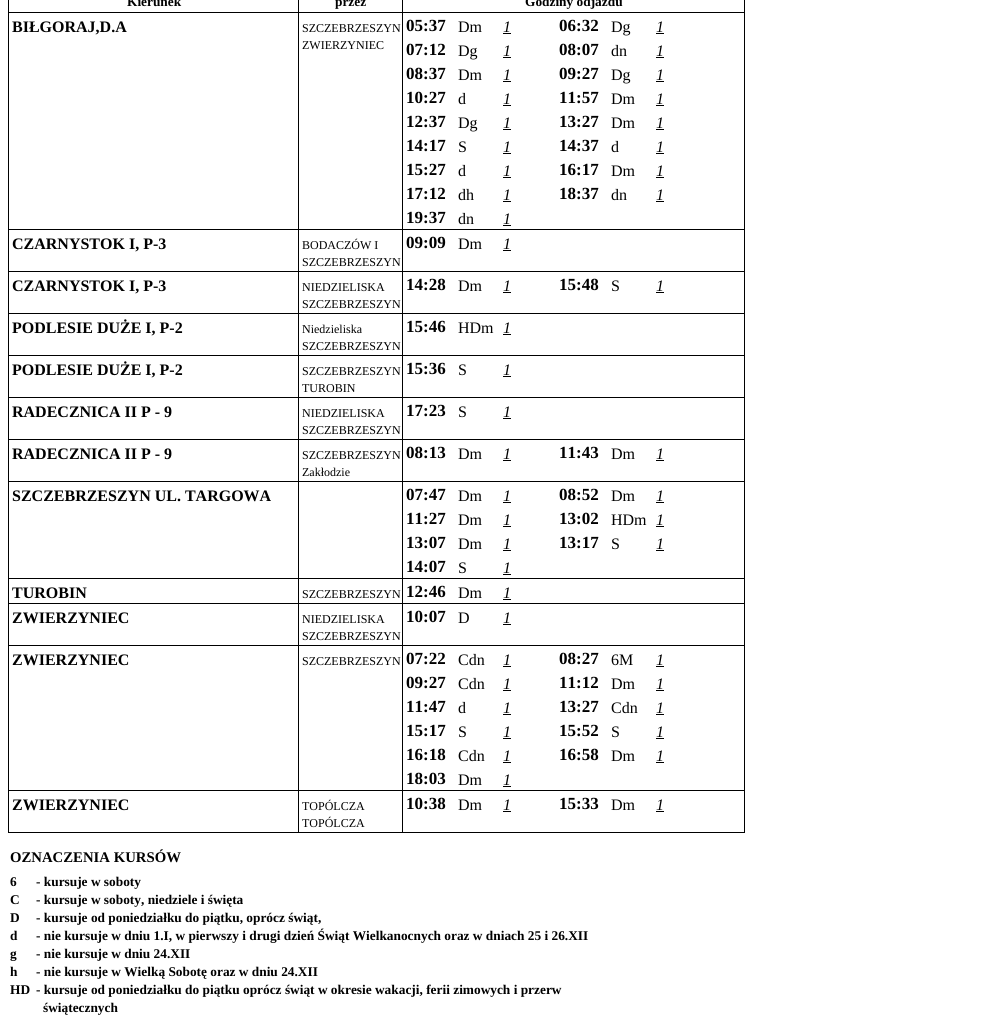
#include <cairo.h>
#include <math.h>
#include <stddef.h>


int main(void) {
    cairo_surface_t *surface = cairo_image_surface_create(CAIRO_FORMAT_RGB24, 992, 1015);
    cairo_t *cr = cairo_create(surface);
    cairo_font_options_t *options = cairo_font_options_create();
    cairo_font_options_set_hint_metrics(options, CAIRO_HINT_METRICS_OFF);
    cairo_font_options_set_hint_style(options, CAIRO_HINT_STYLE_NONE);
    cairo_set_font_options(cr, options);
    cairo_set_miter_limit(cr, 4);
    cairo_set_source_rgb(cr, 1, 1, 1);
    cairo_paint(cr);
    cairo_select_font_face(cr, "Liberation Serif", CAIRO_FONT_SLANT_NORMAL, CAIRO_FONT_WEIGHT_BOLD);
    cairo_set_font_size(cr, 13.35);
    cairo_set_source_rgb(cr, 0, 0, 0);
    cairo_move_to(cr, 127, 6);
    cairo_show_text(cr, "Kierunek");
    cairo_rectangle(cr, 402, 12, 343, 1);
    cairo_fill(cr);
    cairo_rectangle(cr, 402, 229, 343, 1);
    cairo_fill(cr);
    cairo_rectangle(cr, 402, 271, 343, 1);
    cairo_fill(cr);
    cairo_rectangle(cr, 402, 313, 343, 1);
    cairo_fill(cr);
    cairo_rectangle(cr, 402, 355, 343, 1);
    cairo_fill(cr);
    cairo_rectangle(cr, 402, 397, 343, 1);
    cairo_fill(cr);
    cairo_rectangle(cr, 402, 439, 343, 1);
    cairo_fill(cr);
    cairo_rectangle(cr, 402, 481, 343, 1);
    cairo_fill(cr);
    cairo_rectangle(cr, 402, 578, 343, 1);
    cairo_fill(cr);
    cairo_rectangle(cr, 402, 603, 343, 1);
    cairo_fill(cr);
    cairo_rectangle(cr, 402, 645, 343, 1);
    cairo_fill(cr);
    cairo_rectangle(cr, 402, 790, 343, 1);
    cairo_fill(cr);
    cairo_rectangle(cr, 744, 815, 1, 18);
    cairo_fill(cr);
    cairo_rectangle(cr, 402, 832, 343, 1);
    cairo_fill(cr);
    cairo_rectangle(cr, 402, 815, 1, 18);
    cairo_fill(cr);
    cairo_rectangle(cr, 402, 790, 1, 26);
    cairo_fill(cr);
    cairo_rectangle(cr, 298, 790, 105, 1);
    cairo_fill(cr);
    cairo_rectangle(cr, 402, 670, 1, 121);
    cairo_fill(cr);
    cairo_rectangle(cr, 402, 645, 1, 26);
    cairo_fill(cr);
    cairo_rectangle(cr, 298, 645, 105, 1);
    cairo_fill(cr);
    cairo_rectangle(cr, 402, 628, 1, 18);
    cairo_fill(cr);
    cairo_rectangle(cr, 402, 603, 1, 26);
    cairo_fill(cr);
    cairo_rectangle(cr, 298, 603, 105, 1);
    cairo_fill(cr);
    cairo_rectangle(cr, 402, 578, 1, 26);
    cairo_fill(cr);
    cairo_rectangle(cr, 298, 578, 105, 1);
    cairo_fill(cr);
    cairo_rectangle(cr, 402, 506, 1, 73);
    cairo_fill(cr);
    cairo_rectangle(cr, 402, 481, 1, 26);
    cairo_fill(cr);
    cairo_rectangle(cr, 298, 481, 105, 1);
    cairo_fill(cr);
    cairo_rectangle(cr, 402, 464, 1, 18);
    cairo_fill(cr);
    cairo_rectangle(cr, 402, 439, 1, 26);
    cairo_fill(cr);
    cairo_rectangle(cr, 298, 439, 105, 1);
    cairo_fill(cr);
    cairo_rectangle(cr, 402, 422, 1, 18);
    cairo_fill(cr);
    cairo_rectangle(cr, 402, 397, 1, 26);
    cairo_fill(cr);
    cairo_rectangle(cr, 298, 397, 105, 1);
    cairo_fill(cr);
    cairo_rectangle(cr, 402, 380, 1, 18);
    cairo_fill(cr);
    cairo_rectangle(cr, 402, 355, 1, 26);
    cairo_fill(cr);
    cairo_rectangle(cr, 298, 355, 105, 1);
    cairo_fill(cr);
    cairo_rectangle(cr, 402, 338, 1, 18);
    cairo_fill(cr);
    cairo_rectangle(cr, 402, 313, 1, 26);
    cairo_fill(cr);
    cairo_rectangle(cr, 298, 313, 105, 1);
    cairo_fill(cr);
    cairo_rectangle(cr, 402, 296, 1, 18);
    cairo_fill(cr);
    cairo_rectangle(cr, 402, 271, 1, 26);
    cairo_fill(cr);
    cairo_rectangle(cr, 298, 271, 105, 1);
    cairo_fill(cr);
    cairo_rectangle(cr, 402, 254, 1, 18);
    cairo_fill(cr);
    cairo_rectangle(cr, 402, 229, 1, 26);
    cairo_fill(cr);
    cairo_rectangle(cr, 298, 229, 105, 1);
    cairo_fill(cr);
    cairo_rectangle(cr, 402, 37, 1, 193);
    cairo_fill(cr);
    cairo_rectangle(cr, 402, 12, 1, 26);
    cairo_fill(cr);
    cairo_rectangle(cr, 298, 12, 105, 1);
    cairo_fill(cr);
    cairo_rectangle(cr, 298, 832, 105, 1);
    cairo_fill(cr);
    cairo_rectangle(cr, 298, 815, 1, 18);
    cairo_fill(cr);
    cairo_rectangle(cr, 298, 790, 1, 26);
    cairo_fill(cr);
    cairo_rectangle(cr, 8, 790, 291, 1);
    cairo_fill(cr);
    cairo_rectangle(cr, 298, 670, 1, 121);
    cairo_fill(cr);
    cairo_rectangle(cr, 298, 645, 1, 26);
    cairo_fill(cr);
    cairo_rectangle(cr, 8, 645, 291, 1);
    cairo_fill(cr);
    cairo_rectangle(cr, 298, 628, 1, 18);
    cairo_fill(cr);
    cairo_rectangle(cr, 298, 603, 1, 26);
    cairo_fill(cr);
    cairo_rectangle(cr, 8, 603, 291, 1);
    cairo_fill(cr);
    cairo_rectangle(cr, 298, 578, 1, 26);
    cairo_fill(cr);
    cairo_rectangle(cr, 8, 578, 291, 1);
    cairo_fill(cr);
    cairo_rectangle(cr, 298, 506, 1, 73);
    cairo_fill(cr);
    cairo_rectangle(cr, 298, 481, 1, 26);
    cairo_fill(cr);
    cairo_rectangle(cr, 8, 481, 291, 1);
    cairo_fill(cr);
    cairo_rectangle(cr, 298, 464, 1, 18);
    cairo_fill(cr);
    cairo_rectangle(cr, 298, 439, 1, 26);
    cairo_fill(cr);
    cairo_rectangle(cr, 8, 439, 291, 1);
    cairo_fill(cr);
    cairo_rectangle(cr, 298, 422, 1, 18);
    cairo_fill(cr);
    cairo_rectangle(cr, 298, 397, 1, 26);
    cairo_fill(cr);
    cairo_rectangle(cr, 8, 397, 291, 1);
    cairo_fill(cr);
    cairo_rectangle(cr, 298, 380, 1, 18);
    cairo_fill(cr);
    cairo_rectangle(cr, 298, 355, 1, 26);
    cairo_fill(cr);
    cairo_rectangle(cr, 8, 355, 291, 1);
    cairo_fill(cr);
    cairo_rectangle(cr, 298, 338, 1, 18);
    cairo_fill(cr);
    cairo_rectangle(cr, 298, 313, 1, 26);
    cairo_fill(cr);
    cairo_rectangle(cr, 8, 313, 291, 1);
    cairo_fill(cr);
    cairo_rectangle(cr, 298, 296, 1, 18);
    cairo_fill(cr);
    cairo_rectangle(cr, 298, 271, 1, 26);
    cairo_fill(cr);
    cairo_rectangle(cr, 8, 271, 291, 1);
    cairo_fill(cr);
    cairo_rectangle(cr, 298, 254, 1, 18);
    cairo_fill(cr);
    cairo_rectangle(cr, 298, 229, 1, 26);
    cairo_fill(cr);
    cairo_rectangle(cr, 8, 229, 291, 1);
    cairo_fill(cr);
    cairo_rectangle(cr, 298, 37, 1, 193);
    cairo_fill(cr);
    cairo_rectangle(cr, 298, 12, 1, 26);
    cairo_fill(cr);
    cairo_rectangle(cr, 8, 12, 291, 1);
    cairo_fill(cr);
    cairo_rectangle(cr, 298, 0, 1, 13);
    cairo_fill(cr);
    cairo_move_to(cr, 335, 6);
    cairo_show_text(cr, "przez");
    cairo_rectangle(cr, 402, 0, 1, 13);
    cairo_fill(cr);
    cairo_move_to(cr, 525, 6);
    cairo_show_text(cr, "Godziny odjazdu");
    cairo_rectangle(cr, 8, 832, 291, 1);
    cairo_fill(cr);
    cairo_rectangle(cr, 8, 815, 1, 18);
    cairo_fill(cr);
    cairo_rectangle(cr, 8, 670, 1, 146);
    cairo_fill(cr);
    cairo_rectangle(cr, 8, 628, 1, 43);
    cairo_fill(cr);
    cairo_rectangle(cr, 8, 603, 1, 26);
    cairo_fill(cr);
    cairo_rectangle(cr, 8, 506, 1, 98);
    cairo_fill(cr);
    cairo_rectangle(cr, 8, 464, 1, 43);
    cairo_fill(cr);
    cairo_rectangle(cr, 8, 422, 1, 43);
    cairo_fill(cr);
    cairo_rectangle(cr, 8, 380, 1, 43);
    cairo_fill(cr);
    cairo_rectangle(cr, 8, 338, 1, 43);
    cairo_fill(cr);
    cairo_rectangle(cr, 8, 296, 1, 43);
    cairo_fill(cr);
    cairo_rectangle(cr, 8, 254, 1, 43);
    cairo_fill(cr);
    cairo_rectangle(cr, 8, 37, 1, 218);
    cairo_fill(cr);
    cairo_rectangle(cr, 8, 0, 1, 38);
    cairo_fill(cr);
    cairo_set_font_size(cr, 16);
    cairo_move_to(cr, 12, 32);
    cairo_show_text(cr, "BIŁGORAJ,D.A");
    cairo_select_font_face(cr, "Liberation Serif", CAIRO_FONT_SLANT_NORMAL, CAIRO_FONT_WEIGHT_NORMAL);
    cairo_set_font_size(cr, 12);
    cairo_move_to(cr, 302, 32);
    cairo_show_text(cr, "SZCZEBRZESZYN");
    cairo_select_font_face(cr, "Liberation Serif", CAIRO_FONT_SLANT_NORMAL, CAIRO_FONT_WEIGHT_BOLD);
    cairo_set_font_size(cr, 17);
    cairo_move_to(cr, 406, 31);
    cairo_show_text(cr, "05:37");
    cairo_select_font_face(cr, "Liberation Serif", CAIRO_FONT_SLANT_NORMAL, CAIRO_FONT_WEIGHT_NORMAL);
    cairo_set_font_size(cr, 16);
    cairo_move_to(cr, 458, 32);
    cairo_show_text(cr, "Dm");
    cairo_select_font_face(cr, "Liberation Serif", CAIRO_FONT_SLANT_ITALIC, CAIRO_FONT_WEIGHT_NORMAL);
    cairo_move_to(cr, 503, 32);
    cairo_show_text(cr, "1");
    cairo_rectangle(cr, 503, 33, 8, 1);
    cairo_fill(cr);
    cairo_select_font_face(cr, "Liberation Serif", CAIRO_FONT_SLANT_NORMAL, CAIRO_FONT_WEIGHT_BOLD);
    cairo_set_font_size(cr, 17);
    cairo_move_to(cr, 559, 31);
    cairo_show_text(cr, "06:32");
    cairo_select_font_face(cr, "Liberation Serif", CAIRO_FONT_SLANT_NORMAL, CAIRO_FONT_WEIGHT_NORMAL);
    cairo_set_font_size(cr, 16);
    cairo_move_to(cr, 611, 32);
    cairo_show_text(cr, "Dg");
    cairo_rectangle(cr, 744, 670, 1, 146);
    cairo_fill(cr);
    cairo_rectangle(cr, 744, 628, 1, 43);
    cairo_fill(cr);
    cairo_rectangle(cr, 744, 603, 1, 26);
    cairo_fill(cr);
    cairo_rectangle(cr, 744, 506, 1, 98);
    cairo_fill(cr);
    cairo_rectangle(cr, 744, 464, 1, 43);
    cairo_fill(cr);
    cairo_rectangle(cr, 744, 422, 1, 43);
    cairo_fill(cr);
    cairo_rectangle(cr, 744, 380, 1, 43);
    cairo_fill(cr);
    cairo_rectangle(cr, 744, 338, 1, 43);
    cairo_fill(cr);
    cairo_rectangle(cr, 744, 296, 1, 43);
    cairo_fill(cr);
    cairo_rectangle(cr, 744, 254, 1, 43);
    cairo_fill(cr);
    cairo_rectangle(cr, 744, 37, 1, 218);
    cairo_fill(cr);
    cairo_rectangle(cr, 744, 0, 1, 38);
    cairo_fill(cr);
    cairo_select_font_face(cr, "Liberation Serif", CAIRO_FONT_SLANT_ITALIC, CAIRO_FONT_WEIGHT_NORMAL);
    cairo_move_to(cr, 656, 32);
    cairo_show_text(cr, "1");
    cairo_rectangle(cr, 656, 33, 8, 1);
    cairo_fill(cr);
    cairo_select_font_face(cr, "Liberation Serif", CAIRO_FONT_SLANT_NORMAL, CAIRO_FONT_WEIGHT_NORMAL);
    cairo_set_font_size(cr, 12);
    cairo_move_to(cr, 302, 49);
    cairo_show_text(cr, "ZWIERZYNIEC");
    cairo_select_font_face(cr, "Liberation Serif", CAIRO_FONT_SLANT_NORMAL, CAIRO_FONT_WEIGHT_BOLD);
    cairo_set_font_size(cr, 17);
    cairo_move_to(cr, 406, 55);
    cairo_show_text(cr, "07:12");
    cairo_select_font_face(cr, "Liberation Serif", CAIRO_FONT_SLANT_NORMAL, CAIRO_FONT_WEIGHT_NORMAL);
    cairo_set_font_size(cr, 16);
    cairo_move_to(cr, 458, 56);
    cairo_show_text(cr, "Dg");
    cairo_select_font_face(cr, "Liberation Serif", CAIRO_FONT_SLANT_ITALIC, CAIRO_FONT_WEIGHT_NORMAL);
    cairo_move_to(cr, 503, 56);
    cairo_show_text(cr, "1");
    cairo_rectangle(cr, 503, 57, 8, 1);
    cairo_fill(cr);
    cairo_select_font_face(cr, "Liberation Serif", CAIRO_FONT_SLANT_NORMAL, CAIRO_FONT_WEIGHT_BOLD);
    cairo_set_font_size(cr, 17);
    cairo_move_to(cr, 559, 55);
    cairo_show_text(cr, "08:07");
    cairo_select_font_face(cr, "Liberation Serif", CAIRO_FONT_SLANT_NORMAL, CAIRO_FONT_WEIGHT_NORMAL);
    cairo_set_font_size(cr, 16);
    cairo_move_to(cr, 611, 56);
    cairo_show_text(cr, "dn");
    cairo_select_font_face(cr, "Liberation Serif", CAIRO_FONT_SLANT_ITALIC, CAIRO_FONT_WEIGHT_NORMAL);
    cairo_move_to(cr, 656, 56);
    cairo_show_text(cr, "1");
    cairo_rectangle(cr, 656, 57, 8, 1);
    cairo_fill(cr);
    cairo_select_font_face(cr, "Liberation Serif", CAIRO_FONT_SLANT_NORMAL, CAIRO_FONT_WEIGHT_BOLD);
    cairo_set_font_size(cr, 17);
    cairo_move_to(cr, 406, 79);
    cairo_show_text(cr, "08:37");
    cairo_select_font_face(cr, "Liberation Serif", CAIRO_FONT_SLANT_NORMAL, CAIRO_FONT_WEIGHT_NORMAL);
    cairo_set_font_size(cr, 16);
    cairo_move_to(cr, 458, 80);
    cairo_show_text(cr, "Dm");
    cairo_select_font_face(cr, "Liberation Serif", CAIRO_FONT_SLANT_ITALIC, CAIRO_FONT_WEIGHT_NORMAL);
    cairo_move_to(cr, 503, 80);
    cairo_show_text(cr, "1");
    cairo_rectangle(cr, 503, 81, 8, 1);
    cairo_fill(cr);
    cairo_select_font_face(cr, "Liberation Serif", CAIRO_FONT_SLANT_NORMAL, CAIRO_FONT_WEIGHT_BOLD);
    cairo_set_font_size(cr, 17);
    cairo_move_to(cr, 559, 79);
    cairo_show_text(cr, "09:27");
    cairo_select_font_face(cr, "Liberation Serif", CAIRO_FONT_SLANT_NORMAL, CAIRO_FONT_WEIGHT_NORMAL);
    cairo_set_font_size(cr, 16);
    cairo_move_to(cr, 611, 80);
    cairo_show_text(cr, "Dg");
    cairo_select_font_face(cr, "Liberation Serif", CAIRO_FONT_SLANT_ITALIC, CAIRO_FONT_WEIGHT_NORMAL);
    cairo_move_to(cr, 656, 80);
    cairo_show_text(cr, "1");
    cairo_rectangle(cr, 656, 81, 8, 1);
    cairo_fill(cr);
    cairo_select_font_face(cr, "Liberation Serif", CAIRO_FONT_SLANT_NORMAL, CAIRO_FONT_WEIGHT_BOLD);
    cairo_set_font_size(cr, 17);
    cairo_move_to(cr, 406, 103);
    cairo_show_text(cr, "10:27");
    cairo_select_font_face(cr, "Liberation Serif", CAIRO_FONT_SLANT_NORMAL, CAIRO_FONT_WEIGHT_NORMAL);
    cairo_set_font_size(cr, 16);
    cairo_move_to(cr, 458, 104);
    cairo_show_text(cr, "d");
    cairo_select_font_face(cr, "Liberation Serif", CAIRO_FONT_SLANT_ITALIC, CAIRO_FONT_WEIGHT_NORMAL);
    cairo_move_to(cr, 503, 104);
    cairo_show_text(cr, "1");
    cairo_rectangle(cr, 503, 105, 8, 1);
    cairo_fill(cr);
    cairo_select_font_face(cr, "Liberation Serif", CAIRO_FONT_SLANT_NORMAL, CAIRO_FONT_WEIGHT_BOLD);
    cairo_set_font_size(cr, 17);
    cairo_move_to(cr, 559, 103);
    cairo_show_text(cr, "11:57");
    cairo_select_font_face(cr, "Liberation Serif", CAIRO_FONT_SLANT_NORMAL, CAIRO_FONT_WEIGHT_NORMAL);
    cairo_set_font_size(cr, 16);
    cairo_move_to(cr, 611, 104);
    cairo_show_text(cr, "Dm");
    cairo_select_font_face(cr, "Liberation Serif", CAIRO_FONT_SLANT_ITALIC, CAIRO_FONT_WEIGHT_NORMAL);
    cairo_move_to(cr, 656, 104);
    cairo_show_text(cr, "1");
    cairo_rectangle(cr, 656, 105, 8, 1);
    cairo_fill(cr);
    cairo_select_font_face(cr, "Liberation Serif", CAIRO_FONT_SLANT_NORMAL, CAIRO_FONT_WEIGHT_BOLD);
    cairo_set_font_size(cr, 17);
    cairo_move_to(cr, 406, 127);
    cairo_show_text(cr, "12:37");
    cairo_select_font_face(cr, "Liberation Serif", CAIRO_FONT_SLANT_NORMAL, CAIRO_FONT_WEIGHT_NORMAL);
    cairo_set_font_size(cr, 16);
    cairo_move_to(cr, 458, 128);
    cairo_show_text(cr, "Dg");
    cairo_select_font_face(cr, "Liberation Serif", CAIRO_FONT_SLANT_ITALIC, CAIRO_FONT_WEIGHT_NORMAL);
    cairo_move_to(cr, 503, 128);
    cairo_show_text(cr, "1");
    cairo_rectangle(cr, 503, 129, 8, 1);
    cairo_fill(cr);
    cairo_select_font_face(cr, "Liberation Serif", CAIRO_FONT_SLANT_NORMAL, CAIRO_FONT_WEIGHT_BOLD);
    cairo_set_font_size(cr, 17);
    cairo_move_to(cr, 559, 127);
    cairo_show_text(cr, "13:27");
    cairo_select_font_face(cr, "Liberation Serif", CAIRO_FONT_SLANT_NORMAL, CAIRO_FONT_WEIGHT_NORMAL);
    cairo_set_font_size(cr, 16);
    cairo_move_to(cr, 611, 128);
    cairo_show_text(cr, "Dm");
    cairo_select_font_face(cr, "Liberation Serif", CAIRO_FONT_SLANT_ITALIC, CAIRO_FONT_WEIGHT_NORMAL);
    cairo_move_to(cr, 656, 128);
    cairo_show_text(cr, "1");
    cairo_rectangle(cr, 656, 129, 8, 1);
    cairo_fill(cr);
    cairo_select_font_face(cr, "Liberation Serif", CAIRO_FONT_SLANT_NORMAL, CAIRO_FONT_WEIGHT_BOLD);
    cairo_set_font_size(cr, 17);
    cairo_move_to(cr, 406, 151);
    cairo_show_text(cr, "14:17");
    cairo_select_font_face(cr, "Liberation Serif", CAIRO_FONT_SLANT_NORMAL, CAIRO_FONT_WEIGHT_NORMAL);
    cairo_set_font_size(cr, 16);
    cairo_move_to(cr, 458, 152);
    cairo_show_text(cr, "S");
    cairo_select_font_face(cr, "Liberation Serif", CAIRO_FONT_SLANT_ITALIC, CAIRO_FONT_WEIGHT_NORMAL);
    cairo_move_to(cr, 503, 152);
    cairo_show_text(cr, "1");
    cairo_rectangle(cr, 503, 153, 8, 1);
    cairo_fill(cr);
    cairo_select_font_face(cr, "Liberation Serif", CAIRO_FONT_SLANT_NORMAL, CAIRO_FONT_WEIGHT_BOLD);
    cairo_set_font_size(cr, 17);
    cairo_move_to(cr, 559, 151);
    cairo_show_text(cr, "14:37");
    cairo_select_font_face(cr, "Liberation Serif", CAIRO_FONT_SLANT_NORMAL, CAIRO_FONT_WEIGHT_NORMAL);
    cairo_set_font_size(cr, 16);
    cairo_move_to(cr, 611, 152);
    cairo_show_text(cr, "d");
    cairo_select_font_face(cr, "Liberation Serif", CAIRO_FONT_SLANT_ITALIC, CAIRO_FONT_WEIGHT_NORMAL);
    cairo_move_to(cr, 656, 152);
    cairo_show_text(cr, "1");
    cairo_rectangle(cr, 656, 153, 8, 1);
    cairo_fill(cr);
    cairo_select_font_face(cr, "Liberation Serif", CAIRO_FONT_SLANT_NORMAL, CAIRO_FONT_WEIGHT_BOLD);
    cairo_set_font_size(cr, 17);
    cairo_move_to(cr, 406, 175);
    cairo_show_text(cr, "15:27");
    cairo_select_font_face(cr, "Liberation Serif", CAIRO_FONT_SLANT_NORMAL, CAIRO_FONT_WEIGHT_NORMAL);
    cairo_set_font_size(cr, 16);
    cairo_move_to(cr, 458, 176);
    cairo_show_text(cr, "d");
    cairo_select_font_face(cr, "Liberation Serif", CAIRO_FONT_SLANT_ITALIC, CAIRO_FONT_WEIGHT_NORMAL);
    cairo_move_to(cr, 503, 176);
    cairo_show_text(cr, "1");
    cairo_rectangle(cr, 503, 177, 8, 1);
    cairo_fill(cr);
    cairo_select_font_face(cr, "Liberation Serif", CAIRO_FONT_SLANT_NORMAL, CAIRO_FONT_WEIGHT_BOLD);
    cairo_set_font_size(cr, 17);
    cairo_move_to(cr, 559, 175);
    cairo_show_text(cr, "16:17");
    cairo_select_font_face(cr, "Liberation Serif", CAIRO_FONT_SLANT_NORMAL, CAIRO_FONT_WEIGHT_NORMAL);
    cairo_set_font_size(cr, 16);
    cairo_move_to(cr, 611, 176);
    cairo_show_text(cr, "Dm");
    cairo_select_font_face(cr, "Liberation Serif", CAIRO_FONT_SLANT_ITALIC, CAIRO_FONT_WEIGHT_NORMAL);
    cairo_move_to(cr, 656, 176);
    cairo_show_text(cr, "1");
    cairo_rectangle(cr, 656, 177, 8, 1);
    cairo_fill(cr);
    cairo_select_font_face(cr, "Liberation Serif", CAIRO_FONT_SLANT_NORMAL, CAIRO_FONT_WEIGHT_BOLD);
    cairo_set_font_size(cr, 17);
    cairo_move_to(cr, 406, 199);
    cairo_show_text(cr, "17:12");
    cairo_select_font_face(cr, "Liberation Serif", CAIRO_FONT_SLANT_NORMAL, CAIRO_FONT_WEIGHT_NORMAL);
    cairo_set_font_size(cr, 16);
    cairo_move_to(cr, 458, 200);
    cairo_show_text(cr, "dh");
    cairo_select_font_face(cr, "Liberation Serif", CAIRO_FONT_SLANT_ITALIC, CAIRO_FONT_WEIGHT_NORMAL);
    cairo_move_to(cr, 503, 200);
    cairo_show_text(cr, "1");
    cairo_rectangle(cr, 503, 201, 8, 1);
    cairo_fill(cr);
    cairo_select_font_face(cr, "Liberation Serif", CAIRO_FONT_SLANT_NORMAL, CAIRO_FONT_WEIGHT_BOLD);
    cairo_set_font_size(cr, 17);
    cairo_move_to(cr, 559, 199);
    cairo_show_text(cr, "18:37");
    cairo_select_font_face(cr, "Liberation Serif", CAIRO_FONT_SLANT_NORMAL, CAIRO_FONT_WEIGHT_NORMAL);
    cairo_set_font_size(cr, 16);
    cairo_move_to(cr, 611, 200);
    cairo_show_text(cr, "dn");
    cairo_select_font_face(cr, "Liberation Serif", CAIRO_FONT_SLANT_ITALIC, CAIRO_FONT_WEIGHT_NORMAL);
    cairo_move_to(cr, 656, 200);
    cairo_show_text(cr, "1");
    cairo_rectangle(cr, 656, 201, 8, 1);
    cairo_fill(cr);
    cairo_select_font_face(cr, "Liberation Serif", CAIRO_FONT_SLANT_NORMAL, CAIRO_FONT_WEIGHT_BOLD);
    cairo_set_font_size(cr, 17);
    cairo_move_to(cr, 406, 223);
    cairo_show_text(cr, "19:37");
    cairo_select_font_face(cr, "Liberation Serif", CAIRO_FONT_SLANT_NORMAL, CAIRO_FONT_WEIGHT_NORMAL);
    cairo_set_font_size(cr, 16);
    cairo_move_to(cr, 458, 224);
    cairo_show_text(cr, "dn");
    cairo_select_font_face(cr, "Liberation Serif", CAIRO_FONT_SLANT_ITALIC, CAIRO_FONT_WEIGHT_NORMAL);
    cairo_move_to(cr, 503, 224);
    cairo_show_text(cr, "1");
    cairo_rectangle(cr, 503, 225, 8, 1);
    cairo_fill(cr);
    cairo_select_font_face(cr, "Liberation Serif", CAIRO_FONT_SLANT_NORMAL, CAIRO_FONT_WEIGHT_BOLD);
    cairo_move_to(cr, 12, 249);
    cairo_show_text(cr, "CZARNYSTOK I, P-3");
    cairo_select_font_face(cr, "Liberation Serif", CAIRO_FONT_SLANT_NORMAL, CAIRO_FONT_WEIGHT_NORMAL);
    cairo_set_font_size(cr, 12);
    cairo_move_to(cr, 302, 249);
    cairo_show_text(cr, "BODACZÓW I");
    cairo_select_font_face(cr, "Liberation Serif", CAIRO_FONT_SLANT_NORMAL, CAIRO_FONT_WEIGHT_BOLD);
    cairo_set_font_size(cr, 17);
    cairo_move_to(cr, 406, 248);
    cairo_show_text(cr, "09:09");
    cairo_select_font_face(cr, "Liberation Serif", CAIRO_FONT_SLANT_NORMAL, CAIRO_FONT_WEIGHT_NORMAL);
    cairo_set_font_size(cr, 16);
    cairo_move_to(cr, 458, 249);
    cairo_show_text(cr, "Dm");
    cairo_select_font_face(cr, "Liberation Serif", CAIRO_FONT_SLANT_ITALIC, CAIRO_FONT_WEIGHT_NORMAL);
    cairo_move_to(cr, 503, 249);
    cairo_show_text(cr, "1");
    cairo_rectangle(cr, 503, 250, 8, 1);
    cairo_fill(cr);
    cairo_select_font_face(cr, "Liberation Serif", CAIRO_FONT_SLANT_NORMAL, CAIRO_FONT_WEIGHT_NORMAL);
    cairo_set_font_size(cr, 12);
    cairo_move_to(cr, 302, 266);
    cairo_show_text(cr, "SZCZEBRZESZYN");
    cairo_select_font_face(cr, "Liberation Serif", CAIRO_FONT_SLANT_NORMAL, CAIRO_FONT_WEIGHT_BOLD);
    cairo_set_font_size(cr, 16);
    cairo_move_to(cr, 12, 291);
    cairo_show_text(cr, "CZARNYSTOK I, P-3");
    cairo_select_font_face(cr, "Liberation Serif", CAIRO_FONT_SLANT_NORMAL, CAIRO_FONT_WEIGHT_NORMAL);
    cairo_set_font_size(cr, 12);
    cairo_move_to(cr, 302, 291);
    cairo_show_text(cr, "NIEDZIELISKA");
    cairo_select_font_face(cr, "Liberation Serif", CAIRO_FONT_SLANT_NORMAL, CAIRO_FONT_WEIGHT_BOLD);
    cairo_set_font_size(cr, 17);
    cairo_move_to(cr, 406, 290);
    cairo_show_text(cr, "14:28");
    cairo_select_font_face(cr, "Liberation Serif", CAIRO_FONT_SLANT_NORMAL, CAIRO_FONT_WEIGHT_NORMAL);
    cairo_set_font_size(cr, 16);
    cairo_move_to(cr, 458, 291);
    cairo_show_text(cr, "Dm");
    cairo_select_font_face(cr, "Liberation Serif", CAIRO_FONT_SLANT_ITALIC, CAIRO_FONT_WEIGHT_NORMAL);
    cairo_move_to(cr, 503, 291);
    cairo_show_text(cr, "1");
    cairo_rectangle(cr, 503, 292, 8, 1);
    cairo_fill(cr);
    cairo_select_font_face(cr, "Liberation Serif", CAIRO_FONT_SLANT_NORMAL, CAIRO_FONT_WEIGHT_BOLD);
    cairo_set_font_size(cr, 17);
    cairo_move_to(cr, 559, 290);
    cairo_show_text(cr, "15:48");
    cairo_select_font_face(cr, "Liberation Serif", CAIRO_FONT_SLANT_NORMAL, CAIRO_FONT_WEIGHT_NORMAL);
    cairo_set_font_size(cr, 16);
    cairo_move_to(cr, 611, 291);
    cairo_show_text(cr, "S");
    cairo_select_font_face(cr, "Liberation Serif", CAIRO_FONT_SLANT_ITALIC, CAIRO_FONT_WEIGHT_NORMAL);
    cairo_move_to(cr, 656, 291);
    cairo_show_text(cr, "1");
    cairo_rectangle(cr, 656, 292, 8, 1);
    cairo_fill(cr);
    cairo_select_font_face(cr, "Liberation Serif", CAIRO_FONT_SLANT_NORMAL, CAIRO_FONT_WEIGHT_NORMAL);
    cairo_set_font_size(cr, 12);
    cairo_move_to(cr, 302, 308);
    cairo_show_text(cr, "SZCZEBRZESZYN");
    cairo_select_font_face(cr, "Liberation Serif", CAIRO_FONT_SLANT_NORMAL, CAIRO_FONT_WEIGHT_BOLD);
    cairo_set_font_size(cr, 16);
    cairo_move_to(cr, 12, 333);
    cairo_show_text(cr, "PODLESIE DUŻE I, P-2");
    cairo_select_font_face(cr, "Liberation Serif", CAIRO_FONT_SLANT_NORMAL, CAIRO_FONT_WEIGHT_NORMAL);
    cairo_set_font_size(cr, 12);
    cairo_move_to(cr, 302, 333);
    cairo_show_text(cr, "Niedzieliska");
    cairo_select_font_face(cr, "Liberation Serif", CAIRO_FONT_SLANT_NORMAL, CAIRO_FONT_WEIGHT_BOLD);
    cairo_set_font_size(cr, 17);
    cairo_move_to(cr, 406, 332);
    cairo_show_text(cr, "15:46");
    cairo_select_font_face(cr, "Liberation Serif", CAIRO_FONT_SLANT_NORMAL, CAIRO_FONT_WEIGHT_NORMAL);
    cairo_set_font_size(cr, 16);
    cairo_move_to(cr, 458, 333);
    cairo_show_text(cr, "HDm");
    cairo_select_font_face(cr, "Liberation Serif", CAIRO_FONT_SLANT_ITALIC, CAIRO_FONT_WEIGHT_NORMAL);
    cairo_move_to(cr, 503, 333);
    cairo_show_text(cr, "1");
    cairo_rectangle(cr, 503, 334, 8, 1);
    cairo_fill(cr);
    cairo_select_font_face(cr, "Liberation Serif", CAIRO_FONT_SLANT_NORMAL, CAIRO_FONT_WEIGHT_NORMAL);
    cairo_set_font_size(cr, 12);
    cairo_move_to(cr, 302, 350);
    cairo_show_text(cr, "SZCZEBRZESZYN");
    cairo_select_font_face(cr, "Liberation Serif", CAIRO_FONT_SLANT_NORMAL, CAIRO_FONT_WEIGHT_BOLD);
    cairo_set_font_size(cr, 16);
    cairo_move_to(cr, 12, 375);
    cairo_show_text(cr, "PODLESIE DUŻE I, P-2");
    cairo_select_font_face(cr, "Liberation Serif", CAIRO_FONT_SLANT_NORMAL, CAIRO_FONT_WEIGHT_NORMAL);
    cairo_set_font_size(cr, 12);
    cairo_move_to(cr, 302, 375);
    cairo_show_text(cr, "SZCZEBRZESZYN");
    cairo_select_font_face(cr, "Liberation Serif", CAIRO_FONT_SLANT_NORMAL, CAIRO_FONT_WEIGHT_BOLD);
    cairo_set_font_size(cr, 17);
    cairo_move_to(cr, 406, 374);
    cairo_show_text(cr, "15:36");
    cairo_select_font_face(cr, "Liberation Serif", CAIRO_FONT_SLANT_NORMAL, CAIRO_FONT_WEIGHT_NORMAL);
    cairo_set_font_size(cr, 16);
    cairo_move_to(cr, 458, 375);
    cairo_show_text(cr, "S");
    cairo_select_font_face(cr, "Liberation Serif", CAIRO_FONT_SLANT_ITALIC, CAIRO_FONT_WEIGHT_NORMAL);
    cairo_move_to(cr, 503, 375);
    cairo_show_text(cr, "1");
    cairo_rectangle(cr, 503, 376, 8, 1);
    cairo_fill(cr);
    cairo_select_font_face(cr, "Liberation Serif", CAIRO_FONT_SLANT_NORMAL, CAIRO_FONT_WEIGHT_NORMAL);
    cairo_set_font_size(cr, 12);
    cairo_move_to(cr, 302, 392);
    cairo_show_text(cr, "TUROBIN");
    cairo_select_font_face(cr, "Liberation Serif", CAIRO_FONT_SLANT_NORMAL, CAIRO_FONT_WEIGHT_BOLD);
    cairo_set_font_size(cr, 16);
    cairo_move_to(cr, 12, 417);
    cairo_show_text(cr, "RADECZNICA II P - 9");
    cairo_select_font_face(cr, "Liberation Serif", CAIRO_FONT_SLANT_NORMAL, CAIRO_FONT_WEIGHT_NORMAL);
    cairo_set_font_size(cr, 12);
    cairo_move_to(cr, 302, 417);
    cairo_show_text(cr, "NIEDZIELISKA");
    cairo_select_font_face(cr, "Liberation Serif", CAIRO_FONT_SLANT_NORMAL, CAIRO_FONT_WEIGHT_BOLD);
    cairo_set_font_size(cr, 17);
    cairo_move_to(cr, 406, 416);
    cairo_show_text(cr, "17:23");
    cairo_select_font_face(cr, "Liberation Serif", CAIRO_FONT_SLANT_NORMAL, CAIRO_FONT_WEIGHT_NORMAL);
    cairo_set_font_size(cr, 16);
    cairo_move_to(cr, 458, 417);
    cairo_show_text(cr, "S");
    cairo_select_font_face(cr, "Liberation Serif", CAIRO_FONT_SLANT_ITALIC, CAIRO_FONT_WEIGHT_NORMAL);
    cairo_move_to(cr, 503, 417);
    cairo_show_text(cr, "1");
    cairo_rectangle(cr, 503, 418, 8, 1);
    cairo_fill(cr);
    cairo_select_font_face(cr, "Liberation Serif", CAIRO_FONT_SLANT_NORMAL, CAIRO_FONT_WEIGHT_NORMAL);
    cairo_set_font_size(cr, 12);
    cairo_move_to(cr, 302, 434);
    cairo_show_text(cr, "SZCZEBRZESZYN");
    cairo_select_font_face(cr, "Liberation Serif", CAIRO_FONT_SLANT_NORMAL, CAIRO_FONT_WEIGHT_BOLD);
    cairo_set_font_size(cr, 16);
    cairo_move_to(cr, 12, 459);
    cairo_show_text(cr, "RADECZNICA II P - 9");
    cairo_select_font_face(cr, "Liberation Serif", CAIRO_FONT_SLANT_NORMAL, CAIRO_FONT_WEIGHT_NORMAL);
    cairo_set_font_size(cr, 12);
    cairo_move_to(cr, 302, 459);
    cairo_show_text(cr, "SZCZEBRZESZYN");
    cairo_select_font_face(cr, "Liberation Serif", CAIRO_FONT_SLANT_NORMAL, CAIRO_FONT_WEIGHT_BOLD);
    cairo_set_font_size(cr, 17);
    cairo_move_to(cr, 406, 458);
    cairo_show_text(cr, "08:13");
    cairo_select_font_face(cr, "Liberation Serif", CAIRO_FONT_SLANT_NORMAL, CAIRO_FONT_WEIGHT_NORMAL);
    cairo_set_font_size(cr, 16);
    cairo_move_to(cr, 458, 459);
    cairo_show_text(cr, "Dm");
    cairo_select_font_face(cr, "Liberation Serif", CAIRO_FONT_SLANT_ITALIC, CAIRO_FONT_WEIGHT_NORMAL);
    cairo_move_to(cr, 503, 459);
    cairo_show_text(cr, "1");
    cairo_rectangle(cr, 503, 460, 8, 1);
    cairo_fill(cr);
    cairo_select_font_face(cr, "Liberation Serif", CAIRO_FONT_SLANT_NORMAL, CAIRO_FONT_WEIGHT_BOLD);
    cairo_set_font_size(cr, 17);
    cairo_move_to(cr, 559, 458);
    cairo_show_text(cr, "11:43");
    cairo_select_font_face(cr, "Liberation Serif", CAIRO_FONT_SLANT_NORMAL, CAIRO_FONT_WEIGHT_NORMAL);
    cairo_set_font_size(cr, 16);
    cairo_move_to(cr, 611, 459);
    cairo_show_text(cr, "Dm");
    cairo_select_font_face(cr, "Liberation Serif", CAIRO_FONT_SLANT_ITALIC, CAIRO_FONT_WEIGHT_NORMAL);
    cairo_move_to(cr, 656, 459);
    cairo_show_text(cr, "1");
    cairo_rectangle(cr, 656, 460, 8, 1);
    cairo_fill(cr);
    cairo_select_font_face(cr, "Liberation Serif", CAIRO_FONT_SLANT_NORMAL, CAIRO_FONT_WEIGHT_NORMAL);
    cairo_set_font_size(cr, 12);
    cairo_move_to(cr, 302, 476);
    cairo_show_text(cr, "Zakłodzie");
    cairo_select_font_face(cr, "Liberation Serif", CAIRO_FONT_SLANT_NORMAL, CAIRO_FONT_WEIGHT_BOLD);
    cairo_set_font_size(cr, 16);
    cairo_move_to(cr, 12, 501);
    cairo_show_text(cr, "SZCZEBRZESZYN UL. TARGOWA");
    cairo_set_font_size(cr, 17);
    cairo_move_to(cr, 406, 500);
    cairo_show_text(cr, "07:47");
    cairo_select_font_face(cr, "Liberation Serif", CAIRO_FONT_SLANT_NORMAL, CAIRO_FONT_WEIGHT_NORMAL);
    cairo_set_font_size(cr, 16);
    cairo_move_to(cr, 458, 501);
    cairo_show_text(cr, "Dm");
    cairo_select_font_face(cr, "Liberation Serif", CAIRO_FONT_SLANT_ITALIC, CAIRO_FONT_WEIGHT_NORMAL);
    cairo_move_to(cr, 503, 501);
    cairo_show_text(cr, "1");
    cairo_rectangle(cr, 503, 502, 8, 1);
    cairo_fill(cr);
    cairo_select_font_face(cr, "Liberation Serif", CAIRO_FONT_SLANT_NORMAL, CAIRO_FONT_WEIGHT_BOLD);
    cairo_set_font_size(cr, 17);
    cairo_move_to(cr, 559, 500);
    cairo_show_text(cr, "08:52");
    cairo_select_font_face(cr, "Liberation Serif", CAIRO_FONT_SLANT_NORMAL, CAIRO_FONT_WEIGHT_NORMAL);
    cairo_set_font_size(cr, 16);
    cairo_move_to(cr, 611, 501);
    cairo_show_text(cr, "Dm");
    cairo_select_font_face(cr, "Liberation Serif", CAIRO_FONT_SLANT_ITALIC, CAIRO_FONT_WEIGHT_NORMAL);
    cairo_move_to(cr, 656, 501);
    cairo_show_text(cr, "1");
    cairo_rectangle(cr, 656, 502, 8, 1);
    cairo_fill(cr);
    cairo_select_font_face(cr, "Liberation Serif", CAIRO_FONT_SLANT_NORMAL, CAIRO_FONT_WEIGHT_BOLD);
    cairo_set_font_size(cr, 17);
    cairo_move_to(cr, 406, 524);
    cairo_show_text(cr, "11:27");
    cairo_select_font_face(cr, "Liberation Serif", CAIRO_FONT_SLANT_NORMAL, CAIRO_FONT_WEIGHT_NORMAL);
    cairo_set_font_size(cr, 16);
    cairo_move_to(cr, 458, 525);
    cairo_show_text(cr, "Dm");
    cairo_select_font_face(cr, "Liberation Serif", CAIRO_FONT_SLANT_ITALIC, CAIRO_FONT_WEIGHT_NORMAL);
    cairo_move_to(cr, 503, 525);
    cairo_show_text(cr, "1");
    cairo_rectangle(cr, 503, 526, 8, 1);
    cairo_fill(cr);
    cairo_select_font_face(cr, "Liberation Serif", CAIRO_FONT_SLANT_NORMAL, CAIRO_FONT_WEIGHT_BOLD);
    cairo_set_font_size(cr, 17);
    cairo_move_to(cr, 559, 524);
    cairo_show_text(cr, "13:02");
    cairo_select_font_face(cr, "Liberation Serif", CAIRO_FONT_SLANT_NORMAL, CAIRO_FONT_WEIGHT_NORMAL);
    cairo_set_font_size(cr, 16);
    cairo_move_to(cr, 611, 525);
    cairo_show_text(cr, "HDm");
    cairo_select_font_face(cr, "Liberation Serif", CAIRO_FONT_SLANT_ITALIC, CAIRO_FONT_WEIGHT_NORMAL);
    cairo_move_to(cr, 656, 525);
    cairo_show_text(cr, "1");
    cairo_rectangle(cr, 656, 526, 8, 1);
    cairo_fill(cr);
    cairo_select_font_face(cr, "Liberation Serif", CAIRO_FONT_SLANT_NORMAL, CAIRO_FONT_WEIGHT_BOLD);
    cairo_set_font_size(cr, 17);
    cairo_move_to(cr, 406, 548);
    cairo_show_text(cr, "13:07");
    cairo_select_font_face(cr, "Liberation Serif", CAIRO_FONT_SLANT_NORMAL, CAIRO_FONT_WEIGHT_NORMAL);
    cairo_set_font_size(cr, 16);
    cairo_move_to(cr, 458, 549);
    cairo_show_text(cr, "Dm");
    cairo_select_font_face(cr, "Liberation Serif", CAIRO_FONT_SLANT_ITALIC, CAIRO_FONT_WEIGHT_NORMAL);
    cairo_move_to(cr, 503, 549);
    cairo_show_text(cr, "1");
    cairo_rectangle(cr, 503, 550, 8, 1);
    cairo_fill(cr);
    cairo_select_font_face(cr, "Liberation Serif", CAIRO_FONT_SLANT_NORMAL, CAIRO_FONT_WEIGHT_BOLD);
    cairo_set_font_size(cr, 17);
    cairo_move_to(cr, 559, 548);
    cairo_show_text(cr, "13:17");
    cairo_select_font_face(cr, "Liberation Serif", CAIRO_FONT_SLANT_NORMAL, CAIRO_FONT_WEIGHT_NORMAL);
    cairo_set_font_size(cr, 16);
    cairo_move_to(cr, 611, 549);
    cairo_show_text(cr, "S");
    cairo_select_font_face(cr, "Liberation Serif", CAIRO_FONT_SLANT_ITALIC, CAIRO_FONT_WEIGHT_NORMAL);
    cairo_move_to(cr, 656, 549);
    cairo_show_text(cr, "1");
    cairo_rectangle(cr, 656, 550, 8, 1);
    cairo_fill(cr);
    cairo_select_font_face(cr, "Liberation Serif", CAIRO_FONT_SLANT_NORMAL, CAIRO_FONT_WEIGHT_BOLD);
    cairo_set_font_size(cr, 17);
    cairo_move_to(cr, 406, 572);
    cairo_show_text(cr, "14:07");
    cairo_select_font_face(cr, "Liberation Serif", CAIRO_FONT_SLANT_NORMAL, CAIRO_FONT_WEIGHT_NORMAL);
    cairo_set_font_size(cr, 16);
    cairo_move_to(cr, 458, 573);
    cairo_show_text(cr, "S");
    cairo_select_font_face(cr, "Liberation Serif", CAIRO_FONT_SLANT_ITALIC, CAIRO_FONT_WEIGHT_NORMAL);
    cairo_move_to(cr, 503, 573);
    cairo_show_text(cr, "1");
    cairo_rectangle(cr, 503, 574, 8, 1);
    cairo_fill(cr);
    cairo_select_font_face(cr, "Liberation Serif", CAIRO_FONT_SLANT_NORMAL, CAIRO_FONT_WEIGHT_BOLD);
    cairo_move_to(cr, 12, 598);
    cairo_show_text(cr, "TUROBIN");
    cairo_select_font_face(cr, "Liberation Serif", CAIRO_FONT_SLANT_NORMAL, CAIRO_FONT_WEIGHT_NORMAL);
    cairo_set_font_size(cr, 12);
    cairo_move_to(cr, 302, 598);
    cairo_show_text(cr, "SZCZEBRZESZYN");
    cairo_select_font_face(cr, "Liberation Serif", CAIRO_FONT_SLANT_NORMAL, CAIRO_FONT_WEIGHT_BOLD);
    cairo_set_font_size(cr, 17);
    cairo_move_to(cr, 406, 597);
    cairo_show_text(cr, "12:46");
    cairo_select_font_face(cr, "Liberation Serif", CAIRO_FONT_SLANT_NORMAL, CAIRO_FONT_WEIGHT_NORMAL);
    cairo_set_font_size(cr, 16);
    cairo_move_to(cr, 458, 598);
    cairo_show_text(cr, "Dm");
    cairo_select_font_face(cr, "Liberation Serif", CAIRO_FONT_SLANT_ITALIC, CAIRO_FONT_WEIGHT_NORMAL);
    cairo_move_to(cr, 503, 598);
    cairo_show_text(cr, "1");
    cairo_rectangle(cr, 503, 599, 8, 1);
    cairo_fill(cr);
    cairo_select_font_face(cr, "Liberation Serif", CAIRO_FONT_SLANT_NORMAL, CAIRO_FONT_WEIGHT_BOLD);
    cairo_move_to(cr, 12, 623);
    cairo_show_text(cr, "ZWIERZYNIEC");
    cairo_select_font_face(cr, "Liberation Serif", CAIRO_FONT_SLANT_NORMAL, CAIRO_FONT_WEIGHT_NORMAL);
    cairo_set_font_size(cr, 12);
    cairo_move_to(cr, 302, 623);
    cairo_show_text(cr, "NIEDZIELISKA");
    cairo_select_font_face(cr, "Liberation Serif", CAIRO_FONT_SLANT_NORMAL, CAIRO_FONT_WEIGHT_BOLD);
    cairo_set_font_size(cr, 17);
    cairo_move_to(cr, 406, 622);
    cairo_show_text(cr, "10:07");
    cairo_select_font_face(cr, "Liberation Serif", CAIRO_FONT_SLANT_NORMAL, CAIRO_FONT_WEIGHT_NORMAL);
    cairo_set_font_size(cr, 16);
    cairo_move_to(cr, 458, 623);
    cairo_show_text(cr, "D");
    cairo_select_font_face(cr, "Liberation Serif", CAIRO_FONT_SLANT_ITALIC, CAIRO_FONT_WEIGHT_NORMAL);
    cairo_move_to(cr, 503, 623);
    cairo_show_text(cr, "1");
    cairo_rectangle(cr, 503, 624, 8, 1);
    cairo_fill(cr);
    cairo_select_font_face(cr, "Liberation Serif", CAIRO_FONT_SLANT_NORMAL, CAIRO_FONT_WEIGHT_NORMAL);
    cairo_set_font_size(cr, 12);
    cairo_move_to(cr, 302, 640);
    cairo_show_text(cr, "SZCZEBRZESZYN");
    cairo_select_font_face(cr, "Liberation Serif", CAIRO_FONT_SLANT_NORMAL, CAIRO_FONT_WEIGHT_BOLD);
    cairo_set_font_size(cr, 16);
    cairo_move_to(cr, 12, 665);
    cairo_show_text(cr, "ZWIERZYNIEC");
    cairo_select_font_face(cr, "Liberation Serif", CAIRO_FONT_SLANT_NORMAL, CAIRO_FONT_WEIGHT_NORMAL);
    cairo_set_font_size(cr, 12);
    cairo_move_to(cr, 302, 665);
    cairo_show_text(cr, "SZCZEBRZESZYN");
    cairo_select_font_face(cr, "Liberation Serif", CAIRO_FONT_SLANT_NORMAL, CAIRO_FONT_WEIGHT_BOLD);
    cairo_set_font_size(cr, 17);
    cairo_move_to(cr, 406, 664);
    cairo_show_text(cr, "07:22");
    cairo_select_font_face(cr, "Liberation Serif", CAIRO_FONT_SLANT_NORMAL, CAIRO_FONT_WEIGHT_NORMAL);
    cairo_set_font_size(cr, 16);
    cairo_move_to(cr, 458, 665);
    cairo_show_text(cr, "Cdn");
    cairo_select_font_face(cr, "Liberation Serif", CAIRO_FONT_SLANT_ITALIC, CAIRO_FONT_WEIGHT_NORMAL);
    cairo_move_to(cr, 503, 665);
    cairo_show_text(cr, "1");
    cairo_rectangle(cr, 503, 666, 8, 1);
    cairo_fill(cr);
    cairo_select_font_face(cr, "Liberation Serif", CAIRO_FONT_SLANT_NORMAL, CAIRO_FONT_WEIGHT_BOLD);
    cairo_set_font_size(cr, 17);
    cairo_move_to(cr, 559, 664);
    cairo_show_text(cr, "08:27");
    cairo_select_font_face(cr, "Liberation Serif", CAIRO_FONT_SLANT_NORMAL, CAIRO_FONT_WEIGHT_NORMAL);
    cairo_set_font_size(cr, 16);
    cairo_move_to(cr, 611, 665);
    cairo_show_text(cr, "6M");
    cairo_select_font_face(cr, "Liberation Serif", CAIRO_FONT_SLANT_ITALIC, CAIRO_FONT_WEIGHT_NORMAL);
    cairo_move_to(cr, 656, 665);
    cairo_show_text(cr, "1");
    cairo_rectangle(cr, 656, 666, 8, 1);
    cairo_fill(cr);
    cairo_select_font_face(cr, "Liberation Serif", CAIRO_FONT_SLANT_NORMAL, CAIRO_FONT_WEIGHT_BOLD);
    cairo_set_font_size(cr, 17);
    cairo_move_to(cr, 406, 688);
    cairo_show_text(cr, "09:27");
    cairo_select_font_face(cr, "Liberation Serif", CAIRO_FONT_SLANT_NORMAL, CAIRO_FONT_WEIGHT_NORMAL);
    cairo_set_font_size(cr, 16);
    cairo_move_to(cr, 458, 689);
    cairo_show_text(cr, "Cdn");
    cairo_select_font_face(cr, "Liberation Serif", CAIRO_FONT_SLANT_ITALIC, CAIRO_FONT_WEIGHT_NORMAL);
    cairo_move_to(cr, 503, 689);
    cairo_show_text(cr, "1");
    cairo_rectangle(cr, 503, 690, 8, 1);
    cairo_fill(cr);
    cairo_select_font_face(cr, "Liberation Serif", CAIRO_FONT_SLANT_NORMAL, CAIRO_FONT_WEIGHT_BOLD);
    cairo_set_font_size(cr, 17);
    cairo_move_to(cr, 559, 688);
    cairo_show_text(cr, "11:12");
    cairo_select_font_face(cr, "Liberation Serif", CAIRO_FONT_SLANT_NORMAL, CAIRO_FONT_WEIGHT_NORMAL);
    cairo_set_font_size(cr, 16);
    cairo_move_to(cr, 611, 689);
    cairo_show_text(cr, "Dm");
    cairo_select_font_face(cr, "Liberation Serif", CAIRO_FONT_SLANT_ITALIC, CAIRO_FONT_WEIGHT_NORMAL);
    cairo_move_to(cr, 656, 689);
    cairo_show_text(cr, "1");
    cairo_rectangle(cr, 656, 690, 8, 1);
    cairo_fill(cr);
    cairo_select_font_face(cr, "Liberation Serif", CAIRO_FONT_SLANT_NORMAL, CAIRO_FONT_WEIGHT_BOLD);
    cairo_set_font_size(cr, 17);
    cairo_move_to(cr, 406, 712);
    cairo_show_text(cr, "11:47");
    cairo_select_font_face(cr, "Liberation Serif", CAIRO_FONT_SLANT_NORMAL, CAIRO_FONT_WEIGHT_NORMAL);
    cairo_set_font_size(cr, 16);
    cairo_move_to(cr, 458, 713);
    cairo_show_text(cr, "d");
    cairo_select_font_face(cr, "Liberation Serif", CAIRO_FONT_SLANT_ITALIC, CAIRO_FONT_WEIGHT_NORMAL);
    cairo_move_to(cr, 503, 713);
    cairo_show_text(cr, "1");
    cairo_rectangle(cr, 503, 714, 8, 1);
    cairo_fill(cr);
    cairo_select_font_face(cr, "Liberation Serif", CAIRO_FONT_SLANT_NORMAL, CAIRO_FONT_WEIGHT_BOLD);
    cairo_set_font_size(cr, 17);
    cairo_move_to(cr, 559, 712);
    cairo_show_text(cr, "13:27");
    cairo_select_font_face(cr, "Liberation Serif", CAIRO_FONT_SLANT_NORMAL, CAIRO_FONT_WEIGHT_NORMAL);
    cairo_set_font_size(cr, 16);
    cairo_move_to(cr, 611, 713);
    cairo_show_text(cr, "Cdn");
    cairo_select_font_face(cr, "Liberation Serif", CAIRO_FONT_SLANT_ITALIC, CAIRO_FONT_WEIGHT_NORMAL);
    cairo_move_to(cr, 656, 713);
    cairo_show_text(cr, "1");
    cairo_rectangle(cr, 656, 714, 8, 1);
    cairo_fill(cr);
    cairo_select_font_face(cr, "Liberation Serif", CAIRO_FONT_SLANT_NORMAL, CAIRO_FONT_WEIGHT_BOLD);
    cairo_set_font_size(cr, 17);
    cairo_move_to(cr, 406, 736);
    cairo_show_text(cr, "15:17");
    cairo_select_font_face(cr, "Liberation Serif", CAIRO_FONT_SLANT_NORMAL, CAIRO_FONT_WEIGHT_NORMAL);
    cairo_set_font_size(cr, 16);
    cairo_move_to(cr, 458, 737);
    cairo_show_text(cr, "S");
    cairo_select_font_face(cr, "Liberation Serif", CAIRO_FONT_SLANT_ITALIC, CAIRO_FONT_WEIGHT_NORMAL);
    cairo_move_to(cr, 503, 737);
    cairo_show_text(cr, "1");
    cairo_rectangle(cr, 503, 738, 8, 1);
    cairo_fill(cr);
    cairo_select_font_face(cr, "Liberation Serif", CAIRO_FONT_SLANT_NORMAL, CAIRO_FONT_WEIGHT_BOLD);
    cairo_set_font_size(cr, 17);
    cairo_move_to(cr, 559, 736);
    cairo_show_text(cr, "15:52");
    cairo_select_font_face(cr, "Liberation Serif", CAIRO_FONT_SLANT_NORMAL, CAIRO_FONT_WEIGHT_NORMAL);
    cairo_set_font_size(cr, 16);
    cairo_move_to(cr, 611, 737);
    cairo_show_text(cr, "S");
    cairo_select_font_face(cr, "Liberation Serif", CAIRO_FONT_SLANT_ITALIC, CAIRO_FONT_WEIGHT_NORMAL);
    cairo_move_to(cr, 656, 737);
    cairo_show_text(cr, "1");
    cairo_rectangle(cr, 656, 738, 8, 1);
    cairo_fill(cr);
    cairo_select_font_face(cr, "Liberation Serif", CAIRO_FONT_SLANT_NORMAL, CAIRO_FONT_WEIGHT_BOLD);
    cairo_set_font_size(cr, 17);
    cairo_move_to(cr, 406, 760);
    cairo_show_text(cr, "16:18");
    cairo_select_font_face(cr, "Liberation Serif", CAIRO_FONT_SLANT_NORMAL, CAIRO_FONT_WEIGHT_NORMAL);
    cairo_set_font_size(cr, 16);
    cairo_move_to(cr, 458, 761);
    cairo_show_text(cr, "Cdn");
    cairo_select_font_face(cr, "Liberation Serif", CAIRO_FONT_SLANT_ITALIC, CAIRO_FONT_WEIGHT_NORMAL);
    cairo_move_to(cr, 503, 761);
    cairo_show_text(cr, "1");
    cairo_rectangle(cr, 503, 762, 8, 1);
    cairo_fill(cr);
    cairo_select_font_face(cr, "Liberation Serif", CAIRO_FONT_SLANT_NORMAL, CAIRO_FONT_WEIGHT_BOLD);
    cairo_set_font_size(cr, 17);
    cairo_move_to(cr, 559, 760);
    cairo_show_text(cr, "16:58");
    cairo_select_font_face(cr, "Liberation Serif", CAIRO_FONT_SLANT_NORMAL, CAIRO_FONT_WEIGHT_NORMAL);
    cairo_set_font_size(cr, 16);
    cairo_move_to(cr, 611, 761);
    cairo_show_text(cr, "Dm");
    cairo_select_font_face(cr, "Liberation Serif", CAIRO_FONT_SLANT_ITALIC, CAIRO_FONT_WEIGHT_NORMAL);
    cairo_move_to(cr, 656, 761);
    cairo_show_text(cr, "1");
    cairo_rectangle(cr, 656, 762, 8, 1);
    cairo_fill(cr);
    cairo_select_font_face(cr, "Liberation Serif", CAIRO_FONT_SLANT_NORMAL, CAIRO_FONT_WEIGHT_BOLD);
    cairo_set_font_size(cr, 17);
    cairo_move_to(cr, 406, 784);
    cairo_show_text(cr, "18:03");
    cairo_select_font_face(cr, "Liberation Serif", CAIRO_FONT_SLANT_NORMAL, CAIRO_FONT_WEIGHT_NORMAL);
    cairo_set_font_size(cr, 16);
    cairo_move_to(cr, 458, 785);
    cairo_show_text(cr, "Dm");
    cairo_select_font_face(cr, "Liberation Serif", CAIRO_FONT_SLANT_ITALIC, CAIRO_FONT_WEIGHT_NORMAL);
    cairo_move_to(cr, 503, 785);
    cairo_show_text(cr, "1");
    cairo_rectangle(cr, 503, 786, 8, 1);
    cairo_fill(cr);
    cairo_select_font_face(cr, "Liberation Serif", CAIRO_FONT_SLANT_NORMAL, CAIRO_FONT_WEIGHT_BOLD);
    cairo_move_to(cr, 12, 810);
    cairo_show_text(cr, "ZWIERZYNIEC");
    cairo_select_font_face(cr, "Liberation Serif", CAIRO_FONT_SLANT_NORMAL, CAIRO_FONT_WEIGHT_NORMAL);
    cairo_set_font_size(cr, 12);
    cairo_move_to(cr, 302, 810);
    cairo_show_text(cr, "TOPÓLCZA");
    cairo_select_font_face(cr, "Liberation Serif", CAIRO_FONT_SLANT_NORMAL, CAIRO_FONT_WEIGHT_BOLD);
    cairo_set_font_size(cr, 17);
    cairo_move_to(cr, 406, 809);
    cairo_show_text(cr, "10:38");
    cairo_select_font_face(cr, "Liberation Serif", CAIRO_FONT_SLANT_NORMAL, CAIRO_FONT_WEIGHT_NORMAL);
    cairo_set_font_size(cr, 16);
    cairo_move_to(cr, 458, 810);
    cairo_show_text(cr, "Dm");
    cairo_select_font_face(cr, "Liberation Serif", CAIRO_FONT_SLANT_ITALIC, CAIRO_FONT_WEIGHT_NORMAL);
    cairo_move_to(cr, 503, 810);
    cairo_show_text(cr, "1");
    cairo_rectangle(cr, 503, 811, 8, 1);
    cairo_fill(cr);
    cairo_select_font_face(cr, "Liberation Serif", CAIRO_FONT_SLANT_NORMAL, CAIRO_FONT_WEIGHT_BOLD);
    cairo_set_font_size(cr, 17);
    cairo_move_to(cr, 559, 809);
    cairo_show_text(cr, "15:33");
    cairo_select_font_face(cr, "Liberation Serif", CAIRO_FONT_SLANT_NORMAL, CAIRO_FONT_WEIGHT_NORMAL);
    cairo_set_font_size(cr, 16);
    cairo_move_to(cr, 611, 810);
    cairo_show_text(cr, "Dm");
    cairo_select_font_face(cr, "Liberation Serif", CAIRO_FONT_SLANT_ITALIC, CAIRO_FONT_WEIGHT_NORMAL);
    cairo_move_to(cr, 656, 810);
    cairo_show_text(cr, "1");
    cairo_rectangle(cr, 656, 811, 8, 1);
    cairo_fill(cr);
    cairo_select_font_face(cr, "Liberation Serif", CAIRO_FONT_SLANT_NORMAL, CAIRO_FONT_WEIGHT_NORMAL);
    cairo_set_font_size(cr, 12);
    cairo_move_to(cr, 302, 827);
    cairo_show_text(cr, "TOPÓLCZA");
    cairo_select_font_face(cr, "Liberation Serif", CAIRO_FONT_SLANT_NORMAL, CAIRO_FONT_WEIGHT_BOLD);
    cairo_set_font_size(cr, 14.75);
    cairo_move_to(cr, 10, 862);
    cairo_show_text(cr, "OZNACZENIA KURSÓW");
    cairo_set_font_size(cr, 13.35);
    cairo_move_to(cr, 10, 886);
    cairo_show_text(cr, "6");
    cairo_move_to(cr, 36, 886);
    cairo_show_text(cr, "- kursuje w soboty");
    cairo_move_to(cr, 10, 904);
    cairo_show_text(cr, "C");
    cairo_move_to(cr, 36, 904);
    cairo_show_text(cr, "- kursuje w soboty, niedziele i święta");
    cairo_move_to(cr, 10, 922);
    cairo_show_text(cr, "D");
    cairo_move_to(cr, 36, 922);
    cairo_show_text(cr, "- kursuje od poniedziałku do piątku, oprócz świąt,");
    cairo_move_to(cr, 10, 940);
    cairo_show_text(cr, "d");
    cairo_move_to(cr, 36, 940);
    cairo_show_text(cr, "- nie kursuje w dniu 1.I, w pierwszy i drugi dzień Świąt Wielkanocnych oraz w dniach 25 i 26.XII");
    cairo_move_to(cr, 10, 958);
    cairo_show_text(cr, "g");
    cairo_move_to(cr, 36, 958);
    cairo_show_text(cr, "- nie kursuje w dniu 24.XII");
    cairo_move_to(cr, 10, 976);
    cairo_show_text(cr, "h");
    cairo_move_to(cr, 36, 976);
    cairo_show_text(cr, "- nie kursuje w Wielką Sobotę oraz w dniu 24.XII");
    cairo_move_to(cr, 10, 994);
    cairo_show_text(cr, "HD");
    cairo_move_to(cr, 36, 994);
    cairo_show_text(cr, "- kursuje od poniedziałku do piątku oprócz świąt w okresie wakacji, ferii zimowych i przerw");
    cairo_move_to(cr, 43, 1012);
    cairo_show_text(cr, "świątecznych");
    cairo_surface_write_to_png(surface, "page.png");
    cairo_font_options_destroy(options);
    cairo_destroy(cr);
    cairo_surface_destroy(surface);
    return 0;
}
